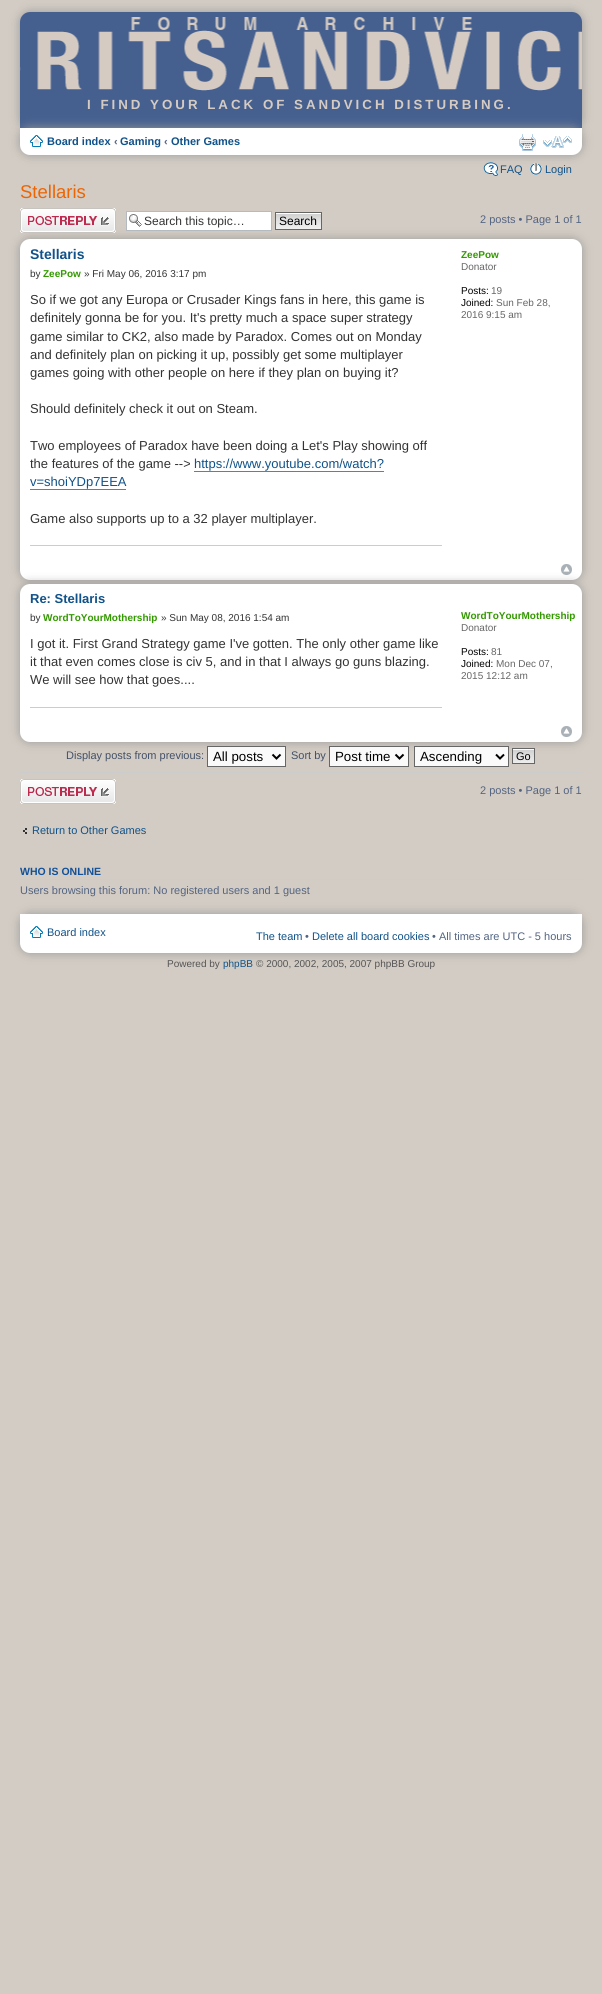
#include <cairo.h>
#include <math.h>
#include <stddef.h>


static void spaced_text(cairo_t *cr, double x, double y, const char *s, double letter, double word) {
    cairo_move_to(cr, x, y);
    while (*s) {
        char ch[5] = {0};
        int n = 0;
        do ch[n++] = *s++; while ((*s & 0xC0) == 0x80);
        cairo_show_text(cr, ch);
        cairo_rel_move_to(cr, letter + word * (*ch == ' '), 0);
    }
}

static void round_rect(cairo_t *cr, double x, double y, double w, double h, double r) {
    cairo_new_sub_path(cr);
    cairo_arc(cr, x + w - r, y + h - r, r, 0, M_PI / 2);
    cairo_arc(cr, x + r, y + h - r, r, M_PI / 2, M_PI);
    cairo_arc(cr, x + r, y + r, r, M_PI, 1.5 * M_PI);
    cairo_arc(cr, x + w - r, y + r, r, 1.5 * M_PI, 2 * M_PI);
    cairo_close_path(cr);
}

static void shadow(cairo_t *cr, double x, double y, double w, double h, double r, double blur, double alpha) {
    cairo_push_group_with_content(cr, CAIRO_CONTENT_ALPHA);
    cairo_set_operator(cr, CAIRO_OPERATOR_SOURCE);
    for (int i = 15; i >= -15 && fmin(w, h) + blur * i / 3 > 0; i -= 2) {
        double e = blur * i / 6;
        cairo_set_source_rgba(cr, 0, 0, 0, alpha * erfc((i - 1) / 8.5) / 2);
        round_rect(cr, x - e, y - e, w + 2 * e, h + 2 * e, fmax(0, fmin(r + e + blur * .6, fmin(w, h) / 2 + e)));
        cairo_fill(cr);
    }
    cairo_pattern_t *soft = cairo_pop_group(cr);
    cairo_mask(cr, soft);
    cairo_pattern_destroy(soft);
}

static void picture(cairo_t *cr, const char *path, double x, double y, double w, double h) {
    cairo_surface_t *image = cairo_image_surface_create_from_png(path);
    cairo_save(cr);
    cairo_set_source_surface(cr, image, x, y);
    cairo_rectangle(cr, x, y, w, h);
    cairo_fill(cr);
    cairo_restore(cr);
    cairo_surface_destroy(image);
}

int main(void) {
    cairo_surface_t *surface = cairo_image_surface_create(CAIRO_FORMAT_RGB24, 602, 1994);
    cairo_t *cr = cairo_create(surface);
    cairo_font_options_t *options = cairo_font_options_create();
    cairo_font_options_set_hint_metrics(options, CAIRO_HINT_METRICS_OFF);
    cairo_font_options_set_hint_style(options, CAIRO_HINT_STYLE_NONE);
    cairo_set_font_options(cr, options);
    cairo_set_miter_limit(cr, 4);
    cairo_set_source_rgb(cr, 0.827, 0.8, 0.769);
    cairo_paint(cr);
    cairo_set_source_rgb(cr, 0.6, 0.6, 0.6);
    shadow(cr, 20, 12, 562, 116, 10, 5, 1);
    cairo_set_source_rgb(cr, 0.271, 0.376, 0.561);
    cairo_new_path(cr);
    cairo_move_to(cr, 30, 12);
    cairo_line_to(cr, 572, 12);
    cairo_curve_to(cr, 577.5, 12, 582, 16.5, 582, 22);
    cairo_line_to(cr, 582, 128);
    cairo_line_to(cr, 20, 128);
    cairo_line_to(cr, 20, 22);
    cairo_curve_to(cr, 20, 16.5, 24.5, 12, 30, 12);
    cairo_close_path(cr);
    cairo_fill(cr);
    picture(cr, "img1.png", 20, 17, 562, 74);
    cairo_select_font_face(cr, "Liberation Sans", CAIRO_FONT_SLANT_NORMAL, CAIRO_FONT_WEIGHT_BOLD);
    cairo_set_font_size(cr, 13.3);
    cairo_set_source_rgb(cr, 0.835, 0.796, 0.761);
    spaced_text(cr, 87, 109, "I FIND YOUR LACK OF SANDVICH DISTURBING.", 3, 0);
    cairo_set_source_rgb(cr, 0.6, 0.6, 0.6);
    shadow(cr, 20, 128, 562, 27, 10, 5, 1);
    cairo_set_source_rgb(cr, 1, 1, 1);
    cairo_new_path(cr);
    cairo_move_to(cr, 20, 128);
    cairo_line_to(cr, 582, 128);
    cairo_line_to(cr, 582, 145);
    cairo_curve_to(cr, 582, 150.5, 577.5, 155, 572, 155);
    cairo_line_to(cr, 30, 155);
    cairo_curve_to(cr, 24.5, 155, 20, 150.5, 20, 145);
    cairo_close_path(cr);
    cairo_fill(cr);
    picture(cr, "img2.png", 30, 135, 13, 12);
    cairo_set_font_size(cr, 11);
    cairo_set_source_rgb(cr, 0.063, 0.322, 0.537);
    cairo_move_to(cr, 47, 145);
    cairo_show_text(cr, "Board index");
    cairo_set_source_rgb(cr, 0.325, 0.392, 0.51);
    cairo_move_to(cr, 114, 145);
    cairo_show_text(cr, "‹");
    cairo_set_source_rgb(cr, 0.063, 0.322, 0.537);
    cairo_move_to(cr, 120, 145);
    cairo_show_text(cr, "Gaming");
    cairo_set_source_rgb(cr, 0.325, 0.392, 0.51);
    cairo_move_to(cr, 164, 145);
    cairo_show_text(cr, "‹");
    cairo_set_source_rgb(cr, 0.063, 0.322, 0.537);
    cairo_move_to(cr, 171, 145);
    cairo_show_text(cr, "Other Games");
    picture(cr, "img3.png", 519, 134, 17, 17);
    picture(cr, "img4.png", 543, 136, 29, 12);
    picture(cr, "img5.png", 483, 162, 16, 14);
    cairo_select_font_face(cr, "Liberation Sans", CAIRO_FONT_SLANT_NORMAL, CAIRO_FONT_WEIGHT_NORMAL);
    cairo_move_to(cr, 500, 173);
    cairo_show_text(cr, "FAQ");
    picture(cr, "img6.png", 530, 163, 12, 12);
    cairo_move_to(cr, 545, 173);
    cairo_show_text(cr, "Login");
    cairo_set_font_size(cr, 18.5);
    cairo_set_source_rgb(cr, 0.925, 0.396, 0.012);
    cairo_move_to(cr, 20, 198);
    cairo_show_text(cr, "Stellaris");
    cairo_set_source_rgb(cr, 0.6, 0.6, 0.6);
    shadow(cr, 20, 239, 562, 341, 10, 5, 1);
    picture(cr, "img7.png", 20, 208, 96, 25);
    cairo_set_source_rgb(cr, 1, 1, 1);
    cairo_rectangle(cr, 127, 212, 144, 18);
    cairo_fill(cr);
    picture(cr, "img8.png", 129, 214, 13, 13);
    cairo_rectangle(cr, 126.5, 211.5, 145, 19);
    cairo_set_source_rgb(cr, 0.706, 0.729, 0.753);
    cairo_set_line_width(cr, 1);
    cairo_stroke(cr);
    cairo_set_font_size(cr, 12);
    cairo_set_source_rgb(cr, 0.2, 0.2, 0.2);
    cairo_move_to(cr, 144, 225);
    cairo_show_text(cr, "Search this topic…");
    picture(cr, "img9.png", 276, 213, 45, 16);
    cairo_rectangle(cr, 275.5, 212.5, 46, 17);
    cairo_set_source_rgb(cr, 0.4, 0.4, 0.4);
    cairo_stroke(cr);
    cairo_set_source_rgb(cr, 0, 0, 0);
    cairo_move_to(cr, 279, 225);
    cairo_show_text(cr, "Search");
    cairo_set_font_size(cr, 11);
    cairo_set_source_rgb(cr, 0.325, 0.392, 0.51);
    cairo_move_to(cr, 480, 223);
    cairo_show_text(cr, "2 posts • Page 1 of 1");
    cairo_set_source_rgb(cr, 1, 1, 1);
    round_rect(cr, 20, 239, 562, 341, 10);
    cairo_fill(cr);
    cairo_select_font_face(cr, "Liberation Sans", CAIRO_FONT_SLANT_NORMAL, CAIRO_FONT_WEIGHT_BOLD);
    cairo_set_font_size(cr, 14);
    cairo_set_source_rgb(cr, 0.063, 0.322, 0.537);
    cairo_move_to(cr, 30, 259);
    cairo_show_text(cr, "Stellaris");
    cairo_select_font_face(cr, "Liberation Sans", CAIRO_FONT_SLANT_NORMAL, CAIRO_FONT_WEIGHT_NORMAL);
    cairo_set_font_size(cr, 10);
    cairo_set_source_rgb(cr, 0.2, 0.2, 0.2);
    cairo_move_to(cr, 30, 277);
    cairo_show_text(cr, "by");
    cairo_select_font_face(cr, "Liberation Sans", CAIRO_FONT_SLANT_NORMAL, CAIRO_FONT_WEIGHT_BOLD);
    cairo_set_source_rgb(cr, 0.2, 0.6, 0);
    cairo_move_to(cr, 43, 277);
    cairo_show_text(cr, "ZeePow");
    cairo_select_font_face(cr, "Liberation Sans", CAIRO_FONT_SLANT_NORMAL, CAIRO_FONT_WEIGHT_NORMAL);
    cairo_set_source_rgb(cr, 0.2, 0.2, 0.2);
    cairo_move_to(cr, 84, 277);
    cairo_show_text(cr, "» Fri May 06, 2016 3:17 pm");
    cairo_set_font_size(cr, 13);
    cairo_move_to(cr, 30, 304);
    cairo_show_text(cr, "So if we got any Europa or Crusader Kings fans in here, this game is");
    cairo_move_to(cr, 30, 322);
    cairo_show_text(cr, "definitely gonna be for you. It's pretty much a space super strategy");
    cairo_move_to(cr, 30, 341);
    cairo_show_text(cr, "game similar to CK2, also made by Paradox. Comes out on Monday");
    cairo_move_to(cr, 30, 359);
    cairo_show_text(cr, "and definitely plan on picking it up, possibly get some multiplayer");
    cairo_move_to(cr, 30, 377);
    cairo_show_text(cr, "games going with other people on here if they plan on buying it?");
    cairo_move_to(cr, 30, 413);
    cairo_show_text(cr, "Should definitely check it out on Steam.");
    cairo_move_to(cr, 30, 450);
    cairo_show_text(cr, "Two employees of Paradox have been doing a Let's Play showing off");
    cairo_move_to(cr, 30, 468);
    cairo_show_text(cr, "the features of the game -->");
    cairo_set_source_rgb(cr, 0.063, 0.322, 0.537);
    cairo_move_to(cr, 194, 468);
    cairo_show_text(cr, "https://www.youtube.com/watch?");
    cairo_set_source_rgb(cr, 0.212, 0.541, 0.824);
    cairo_rectangle(cr, 194, 471, 190, 1);
    cairo_fill(cr);
    cairo_set_source_rgb(cr, 0.063, 0.322, 0.537);
    cairo_move_to(cr, 30, 486);
    cairo_show_text(cr, "v=shoiYDp7EEA");
    cairo_set_source_rgb(cr, 0.212, 0.541, 0.824);
    cairo_rectangle(cr, 30, 489, 96, 1);
    cairo_fill(cr);
    cairo_set_source_rgb(cr, 0.2, 0.2, 0.2);
    cairo_move_to(cr, 30, 523);
    cairo_show_text(cr, "Game also supports up to a 32 player multiplayer.");
    cairo_set_source_rgb(cr, 0.8, 0.8, 0.8);
    cairo_rectangle(cr, 30, 545, 412, 1);
    cairo_fill(cr);
    cairo_select_font_face(cr, "Liberation Sans", CAIRO_FONT_SLANT_NORMAL, CAIRO_FONT_WEIGHT_BOLD);
    cairo_set_font_size(cr, 10);
    cairo_set_source_rgb(cr, 0.2, 0.6, 0);
    cairo_move_to(cr, 461, 258);
    cairo_show_text(cr, "ZeePow");
    cairo_select_font_face(cr, "Liberation Sans", CAIRO_FONT_SLANT_NORMAL, CAIRO_FONT_WEIGHT_NORMAL);
    cairo_set_source_rgb(cr, 0.4, 0.4, 0.4);
    cairo_move_to(cr, 461, 270);
    cairo_show_text(cr, "Donator");
    cairo_set_source_rgb(cr, 0, 0, 0);
    cairo_move_to(cr, 461, 294);
    cairo_show_text(cr, "Posts:");
    cairo_set_source_rgb(cr, 0.4, 0.4, 0.4);
    cairo_move_to(cr, 491, 294);
    cairo_show_text(cr, "19");
    cairo_set_source_rgb(cr, 0, 0, 0);
    cairo_move_to(cr, 461, 306);
    cairo_show_text(cr, "Joined:");
    cairo_set_source_rgb(cr, 0.4, 0.4, 0.4);
    cairo_move_to(cr, 496, 306);
    cairo_show_text(cr, "Sun Feb 28,");
    cairo_move_to(cr, 461, 318);
    cairo_show_text(cr, "2016 9:15 am");
    cairo_set_source_rgb(cr, 0.6, 0.6, 0.6);
    shadow(cr, 20, 584, 562, 158, 10, 5, 1);
    picture(cr, "img10.png", 561, 564, 11, 11);
    cairo_set_source_rgb(cr, 1, 1, 1);
    round_rect(cr, 20, 584, 562, 158, 10);
    cairo_fill(cr);
    cairo_select_font_face(cr, "Liberation Sans", CAIRO_FONT_SLANT_NORMAL, CAIRO_FONT_WEIGHT_BOLD);
    cairo_set_font_size(cr, 13);
    cairo_set_source_rgb(cr, 0.063, 0.322, 0.537);
    cairo_move_to(cr, 30, 603);
    cairo_show_text(cr, "Re: Stellaris");
    cairo_select_font_face(cr, "Liberation Sans", CAIRO_FONT_SLANT_NORMAL, CAIRO_FONT_WEIGHT_NORMAL);
    cairo_set_font_size(cr, 10);
    cairo_set_source_rgb(cr, 0.2, 0.2, 0.2);
    cairo_move_to(cr, 30, 621);
    cairo_show_text(cr, "by");
    cairo_select_font_face(cr, "Liberation Sans", CAIRO_FONT_SLANT_NORMAL, CAIRO_FONT_WEIGHT_BOLD);
    cairo_set_source_rgb(cr, 0.2, 0.6, 0);
    cairo_move_to(cr, 43, 621);
    cairo_show_text(cr, "WordToYourMothership");
    cairo_select_font_face(cr, "Liberation Sans", CAIRO_FONT_SLANT_NORMAL, CAIRO_FONT_WEIGHT_NORMAL);
    cairo_set_source_rgb(cr, 0.2, 0.2, 0.2);
    cairo_move_to(cr, 161, 621);
    cairo_show_text(cr, "» Sun May 08, 2016 1:54 am");
    cairo_set_font_size(cr, 13);
    cairo_move_to(cr, 30, 648);
    cairo_show_text(cr, "I got it. First Grand Strategy game I've gotten. The only other game like");
    cairo_move_to(cr, 30, 666);
    cairo_show_text(cr, "it that even comes close is civ 5, and in that I always go guns blazing.");
    cairo_move_to(cr, 30, 684);
    cairo_show_text(cr, "We will see how that goes....");
    cairo_set_source_rgb(cr, 0.8, 0.8, 0.8);
    cairo_rectangle(cr, 30, 707, 412, 1);
    cairo_fill(cr);
    cairo_select_font_face(cr, "Liberation Sans", CAIRO_FONT_SLANT_NORMAL, CAIRO_FONT_WEIGHT_BOLD);
    cairo_set_font_size(cr, 10);
    cairo_set_source_rgb(cr, 0.2, 0.6, 0);
    cairo_move_to(cr, 461, 619);
    cairo_show_text(cr, "WordToYourMothership");
    cairo_select_font_face(cr, "Liberation Sans", CAIRO_FONT_SLANT_NORMAL, CAIRO_FONT_WEIGHT_NORMAL);
    cairo_set_source_rgb(cr, 0.4, 0.4, 0.4);
    cairo_move_to(cr, 461, 631);
    cairo_show_text(cr, "Donator");
    cairo_set_source_rgb(cr, 0, 0, 0);
    cairo_move_to(cr, 461, 655);
    cairo_show_text(cr, "Posts:");
    cairo_set_source_rgb(cr, 0.4, 0.4, 0.4);
    cairo_move_to(cr, 491, 655);
    cairo_show_text(cr, "81");
    cairo_set_source_rgb(cr, 0, 0, 0);
    cairo_move_to(cr, 461, 667);
    cairo_show_text(cr, "Joined:");
    cairo_set_source_rgb(cr, 0.4, 0.4, 0.4);
    cairo_move_to(cr, 496, 667);
    cairo_show_text(cr, "Mon Dec 07,");
    cairo_move_to(cr, 461, 679);
    cairo_show_text(cr, "2015 12:12 am");
    picture(cr, "img11.png", 561, 726, 11, 11);
    cairo_set_font_size(cr, 11);
    cairo_set_source_rgb(cr, 0.259, 0.314, 0.404);
    cairo_move_to(cr, 66, 759);
    cairo_show_text(cr, "Display posts from previous:");
    cairo_set_source_rgb(cr, 0.98, 0.98, 0.98);
    cairo_rectangle(cr, 207.5, 746.5, 78, 20);
    cairo_fill_preserve(cr);
    cairo_set_source_rgb(cr, 0.4, 0.4, 0.4);
    cairo_stroke(cr);
    cairo_new_path(cr);
    cairo_move_to(cr, 272.5, 754.5);
    cairo_line_to(cr, 276.5, 758.5);
    cairo_line_to(cr, 280.5, 754.5);
    cairo_set_source_rgb(cr, 0, 0, 0);
    cairo_set_line_width(cr, 2);
    cairo_stroke(cr);
    cairo_set_font_size(cr, 13.3);
    cairo_move_to(cr, 213, 761);
    cairo_show_text(cr, "All posts");
    cairo_set_font_size(cr, 11);
    cairo_set_source_rgb(cr, 0.259, 0.314, 0.404);
    cairo_move_to(cr, 291, 759);
    cairo_show_text(cr, "Sort by");
    cairo_set_source_rgb(cr, 0.98, 0.98, 0.98);
    cairo_rectangle(cr, 329.5, 746.5, 79, 20);
    cairo_fill_preserve(cr);
    cairo_set_source_rgb(cr, 0.4, 0.4, 0.4);
    cairo_set_line_width(cr, 1);
    cairo_stroke(cr);
    cairo_new_path(cr);
    cairo_move_to(cr, 395.5, 754.5);
    cairo_line_to(cr, 399.5, 758.5);
    cairo_line_to(cr, 403.5, 754.5);
    cairo_set_source_rgb(cr, 0, 0, 0);
    cairo_set_line_width(cr, 2);
    cairo_stroke(cr);
    cairo_set_font_size(cr, 13.3);
    cairo_move_to(cr, 335, 761);
    cairo_show_text(cr, "Post time");
    cairo_set_source_rgb(cr, 0.98, 0.98, 0.98);
    cairo_rectangle(cr, 414.5, 746.5, 94, 20);
    cairo_fill_preserve(cr);
    cairo_set_source_rgb(cr, 0.4, 0.4, 0.4);
    cairo_set_line_width(cr, 1);
    cairo_stroke(cr);
    cairo_new_path(cr);
    cairo_move_to(cr, 496, 754.5);
    cairo_line_to(cr, 500, 758.5);
    cairo_line_to(cr, 504, 754.5);
    cairo_set_source_rgb(cr, 0, 0, 0);
    cairo_set_line_width(cr, 2);
    cairo_stroke(cr);
    cairo_move_to(cr, 420, 761);
    cairo_show_text(cr, "Ascending");
    picture(cr, "img12.png", 513, 749, 21, 14);
    cairo_rectangle(cr, 512.5, 748.5, 22, 15);
    cairo_set_source_rgb(cr, 0.4, 0.4, 0.4);
    cairo_set_line_width(cr, 1);
    cairo_stroke(cr);
    cairo_set_font_size(cr, 11);
    cairo_set_source_rgb(cr, 0, 0, 0);
    cairo_move_to(cr, 516, 760);
    cairo_show_text(cr, "Go");
    cairo_set_source_rgb(cr, 0.8, 0.8, 0.8);
    cairo_rectangle(cr, 20, 772, 562, 1);
    cairo_fill(cr);
    picture(cr, "img13.png", 20, 779, 96, 25);
    cairo_set_source_rgb(cr, 0.325, 0.392, 0.51);
    cairo_move_to(cr, 480, 794);
    cairo_show_text(cr, "2 posts • Page 1 of 1");
    picture(cr, "img14.png", 23, 828, 4, 6);
    cairo_set_source_rgb(cr, 0.063, 0.322, 0.537);
    cairo_move_to(cr, 32, 834);
    cairo_show_text(cr, "Return to Other Games");
    cairo_set_source_rgb(cr, 0.8, 0.8, 0.8);
    cairo_rectangle(cr, 20, 879, 562, 1);
    cairo_fill(cr);
    cairo_select_font_face(cr, "Liberation Sans", CAIRO_FONT_SLANT_NORMAL, CAIRO_FONT_WEIGHT_BOLD);
    cairo_set_font_size(cr, 10.5);
    cairo_set_source_rgb(cr, 0.067, 0.314, 0.596);
    cairo_move_to(cr, 20, 875);
    cairo_show_text(cr, "WHO IS ONLINE");
    cairo_select_font_face(cr, "Liberation Sans", CAIRO_FONT_SLANT_NORMAL, CAIRO_FONT_WEIGHT_NORMAL);
    cairo_set_font_size(cr, 11);
    cairo_set_source_rgb(cr, 0.325, 0.392, 0.51);
    cairo_move_to(cr, 20, 894);
    cairo_show_text(cr, "Users browsing this forum: No registered users and 1 guest");
    cairo_set_source_rgb(cr, 0.6, 0.6, 0.6);
    shadow(cr, 20, 914, 562, 39, 10, 5, 1);
    cairo_set_source_rgb(cr, 1, 1, 1);
    cairo_new_path(cr);
    cairo_move_to(cr, 20, 914);
    cairo_line_to(cr, 582, 914);
    cairo_line_to(cr, 582, 943);
    cairo_curve_to(cr, 582, 948.5, 577.5, 953, 572, 953);
    cairo_line_to(cr, 30, 953);
    cairo_curve_to(cr, 24.5, 953, 20, 948.5, 20, 943);
    cairo_close_path(cr);
    cairo_fill(cr);
    picture(cr, "img2.png", 30, 926, 13, 12);
    cairo_set_source_rgb(cr, 0.063, 0.322, 0.537);
    cairo_move_to(cr, 47, 936);
    cairo_show_text(cr, "Board index");
    cairo_move_to(cr, 256, 940);
    cairo_show_text(cr, "The team");
    cairo_set_source_rgb(cr, 0.325, 0.392, 0.51);
    cairo_move_to(cr, 305, 940);
    cairo_show_text(cr, "•");
    cairo_set_source_rgb(cr, 0.063, 0.322, 0.537);
    cairo_move_to(cr, 312, 940);
    cairo_show_text(cr, "Delete all board cookies");
    cairo_set_source_rgb(cr, 0.325, 0.392, 0.51);
    cairo_move_to(cr, 432, 940);
    cairo_show_text(cr, "• All times are UTC - 5 hours");
    cairo_set_font_size(cr, 10);
    cairo_set_source_rgb(cr, 0.333, 0.333, 0.333);
    cairo_move_to(cr, 167, 967);
    cairo_show_text(cr, "Powered by");
    cairo_set_source_rgb(cr, 0.063, 0.322, 0.537);
    cairo_move_to(cr, 223, 967);
    cairo_show_text(cr, "phpBB");
    cairo_set_source_rgb(cr, 0.333, 0.333, 0.333);
    cairo_move_to(cr, 256, 967);
    cairo_show_text(cr, "© 2000, 2002, 2005, 2007 phpBB Group");
    cairo_surface_write_to_png(surface, "page.png");
    cairo_font_options_destroy(options);
    cairo_destroy(cr);
    cairo_surface_destroy(surface);
    return 0;
}
